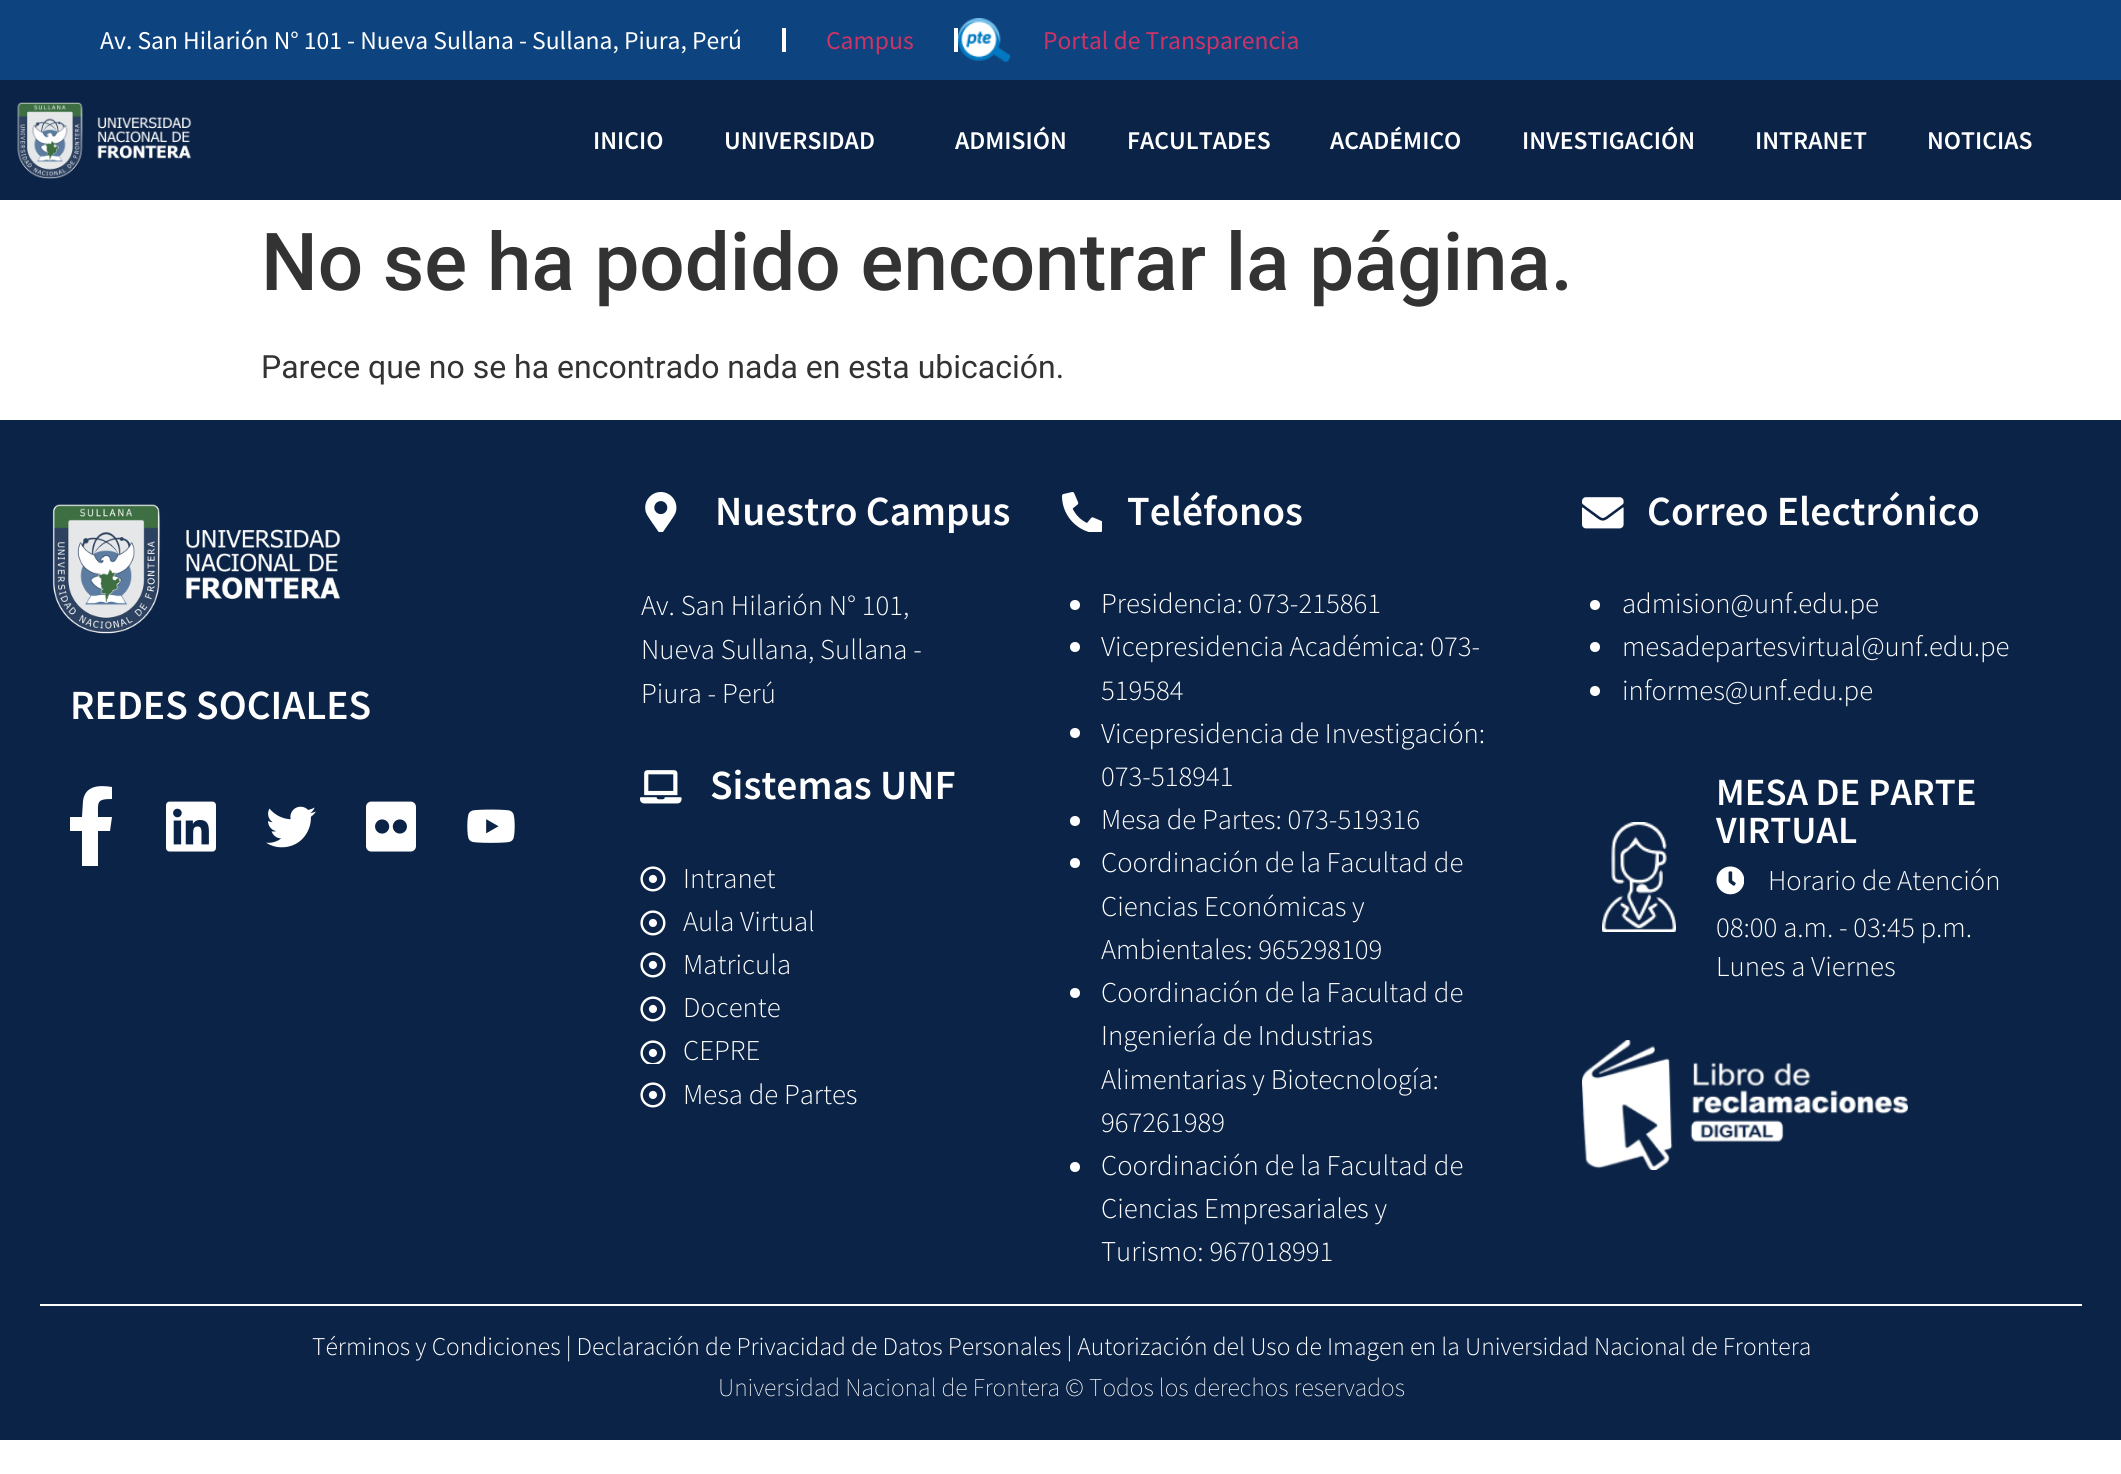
#include <cairo.h>
#include <math.h>
#include <stddef.h>


static void picture(cairo_t *cr, const char *path, double x, double y, double w, double h) {
    cairo_surface_t *image = cairo_image_surface_create_from_png(path);
    cairo_save(cr);
    cairo_set_source_surface(cr, image, x, y);
    cairo_rectangle(cr, x, y, w, h);
    cairo_fill(cr);
    cairo_restore(cr);
    cairo_surface_destroy(image);
}

int main(void) {
    cairo_surface_t *surface = cairo_image_surface_create(CAIRO_FORMAT_RGB24, 2121, 1474);
    cairo_t *cr = cairo_create(surface);
    cairo_font_options_t *options = cairo_font_options_create();
    cairo_font_options_set_hint_metrics(options, CAIRO_HINT_METRICS_OFF);
    cairo_font_options_set_hint_style(options, CAIRO_HINT_STYLE_NONE);
    cairo_set_font_options(cr, options);
    cairo_set_miter_limit(cr, 4);
    cairo_set_source_rgb(cr, 1, 1, 1);
    cairo_paint(cr);
    cairo_set_source_rgb(cr, 0.051, 0.263, 0.498);
    cairo_rectangle(cr, 0, 0, 2121, 80);
    cairo_fill(cr);
    cairo_set_source_rgb(cr, 1, 1, 1);
    cairo_rectangle(cr, 782, 28, 4, 24);
    cairo_fill(cr);
    cairo_select_font_face(cr, "Source Sans Pro", CAIRO_FONT_SLANT_NORMAL, CAIRO_FONT_WEIGHT_NORMAL);
    cairo_set_font_size(cr, 25.6);
    cairo_move_to(cr, 100, 49);
    cairo_show_text(cr, "Av. San Hilarión N° 101 - Nueva Sullana - Sullana, Piura, Perú");
    cairo_rectangle(cr, 954, 28, 4, 24);
    cairo_fill(cr);
    cairo_set_source_rgb(cr, 0.8, 0.2, 0.4);
    cairo_move_to(cr, 826, 49);
    cairo_show_text(cr, "Campus");
    picture(cr, "img1.png", 958, 18, 52, 44);
    cairo_move_to(cr, 1043, 49);
    cairo_show_text(cr, "Portal de Transparencia");
    cairo_set_source_rgb(cr, 0.043, 0.137, 0.275);
    cairo_rectangle(cr, 0, 80, 2121, 120);
    cairo_fill(cr);
    picture(cr, "img2.png", 17, 102, 175, 77);
    cairo_select_font_face(cr, "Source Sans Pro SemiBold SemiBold", CAIRO_FONT_SLANT_NORMAL, CAIRO_FONT_WEIGHT_NORMAL);
    cairo_set_source_rgb(cr, 1, 1, 1);
    cairo_move_to(cr, 593, 149);
    cairo_show_text(cr, "INICIO");
    cairo_move_to(cr, 724, 149);
    cairo_show_text(cr, "UNIVERSIDAD");
    cairo_move_to(cr, 955, 149);
    cairo_show_text(cr, "ADMISIÓN");
    cairo_move_to(cr, 1127, 149);
    cairo_show_text(cr, "FACULTADES");
    cairo_move_to(cr, 1330, 149);
    cairo_show_text(cr, "ACADÉMICO");
    cairo_move_to(cr, 1522, 149);
    cairo_show_text(cr, "INVESTIGACIÓN");
    cairo_move_to(cr, 1755, 149);
    cairo_show_text(cr, "INTRANET");
    cairo_move_to(cr, 1927, 149);
    cairo_show_text(cr, "NOTICIAS");
    cairo_select_font_face(cr, "Roboto Medium", CAIRO_FONT_SLANT_NORMAL, CAIRO_FONT_WEIGHT_NORMAL);
    cairo_set_font_size(cr, 80);
    cairo_set_source_rgb(cr, 0.2, 0.2, 0.2);
    cairo_move_to(cr, 261, 290);
    cairo_show_text(cr, "No se ha podido encontrar la página.");
    cairo_select_font_face(cr, "Roboto", CAIRO_FONT_SLANT_NORMAL, CAIRO_FONT_WEIGHT_NORMAL);
    cairo_set_font_size(cr, 32);
    cairo_move_to(cr, 261, 378);
    cairo_show_text(cr, "Parece que no se ha encontrado nada en esta ubicación.");
    cairo_set_source_rgb(cr, 0.043, 0.137, 0.275);
    cairo_rectangle(cr, 0, 420, 2121, 1020);
    cairo_fill(cr);
    picture(cr, "img3.png", 52, 504, 289, 130);
    cairo_select_font_face(cr, "Source Sans Pro SemiBold SemiBold", CAIRO_FONT_SLANT_NORMAL, CAIRO_FONT_WEIGHT_NORMAL);
    cairo_set_font_size(cr, 41.5);
    cairo_set_source_rgb(cr, 1, 1, 1);
    cairo_move_to(cr, 70, 719);
    cairo_show_text(cr, "REDES SOCIALES");
    cairo_new_path(cr);
    cairo_move_to(cr, 110, 831);
    cairo_line_to(cr, 112, 817);
    cairo_line_to(cr, 98, 817);
    cairo_curve_to(cr, 98, 802, 96, 799, 112, 799);
    cairo_line_to(cr, 112, 787);
    cairo_curve_to(cr, 100, 785, 85, 785, 83, 801);
    cairo_line_to(cr, 82, 817);
    cairo_line_to(cr, 70, 817);
    cairo_line_to(cr, 70, 831);
    cairo_line_to(cr, 82, 831);
    cairo_line_to(cr, 82, 866);
    cairo_line_to(cr, 98, 866);
    cairo_line_to(cr, 98, 831);
    cairo_close_path(cr);
    cairo_fill(cr);
    picture(cr, "img4.png", 166, 801, 50, 51);
    picture(cr, "img5.png", 266, 806, 50, 42);
    picture(cr, "img6.png", 366, 801, 50, 51);
    picture(cr, "img7.png", 467, 809, 48, 34);
    picture(cr, "img8.png", 645, 492, 32, 40);
    cairo_move_to(cr, 715, 525);
    cairo_show_text(cr, "Nuestro Campus");
    cairo_select_font_face(cr, "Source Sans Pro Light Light", CAIRO_FONT_SLANT_NORMAL, CAIRO_FONT_WEIGHT_NORMAL);
    cairo_set_font_size(cr, 28.75);
    cairo_move_to(cr, 641, 615);
    cairo_show_text(cr, "Av. San Hilarión N° 101,");
    cairo_move_to(cr, 641, 659);
    cairo_show_text(cr, "Nueva Sullana, Sullana -");
    cairo_move_to(cr, 641, 703);
    cairo_show_text(cr, "Piura - Perú");
    picture(cr, "img9.png", 640, 770, 42, 34);
    cairo_select_font_face(cr, "Source Sans Pro SemiBold SemiBold", CAIRO_FONT_SLANT_NORMAL, CAIRO_FONT_WEIGHT_NORMAL);
    cairo_set_font_size(cr, 41.5);
    cairo_move_to(cr, 710, 799);
    cairo_show_text(cr, "Sistemas UNF");
    picture(cr, "img10.png", 640, 866, 26, 26);
    cairo_select_font_face(cr, "Source Sans Pro Light Light", CAIRO_FONT_SLANT_NORMAL, CAIRO_FONT_WEIGHT_NORMAL);
    cairo_set_font_size(cr, 28.75);
    cairo_move_to(cr, 683, 888);
    cairo_show_text(cr, "Intranet");
    picture(cr, "img10.png", 640, 910, 26, 26);
    cairo_move_to(cr, 683, 931);
    cairo_show_text(cr, "Aula Virtual");
    picture(cr, "img10.png", 640, 952, 26, 26);
    cairo_move_to(cr, 683, 974);
    cairo_show_text(cr, "Matricula");
    picture(cr, "img10.png", 640, 996, 26, 26);
    cairo_move_to(cr, 683, 1017);
    cairo_show_text(cr, "Docente");
    picture(cr, "img11.png", 640, 1040, 26, 24);
    cairo_move_to(cr, 683, 1060);
    cairo_show_text(cr, "CEPRE");
    picture(cr, "img10.png", 640, 1082, 26, 26);
    cairo_move_to(cr, 683, 1104);
    cairo_show_text(cr, "Mesa de Partes");
    picture(cr, "img12.png", 1062, 492, 40, 40);
    cairo_select_font_face(cr, "Source Sans Pro SemiBold SemiBold", CAIRO_FONT_SLANT_NORMAL, CAIRO_FONT_WEIGHT_NORMAL);
    cairo_set_font_size(cr, 41.5);
    cairo_move_to(cr, 1127, 525);
    cairo_show_text(cr, "Teléfonos");
    cairo_new_path(cr);
    cairo_arc(cr, 1075, 605, 5, 0, 2 * M_PI);
    cairo_fill(cr);
    cairo_select_font_face(cr, "Source Sans Pro Light Light", CAIRO_FONT_SLANT_NORMAL, CAIRO_FONT_WEIGHT_NORMAL);
    cairo_set_font_size(cr, 28.75);
    cairo_move_to(cr, 1101, 613);
    cairo_show_text(cr, "Presidencia: 073-215861");
    cairo_new_path(cr);
    cairo_arc(cr, 1075, 647, 5, 0, 2 * M_PI);
    cairo_fill(cr);
    cairo_move_to(cr, 1101, 656);
    cairo_show_text(cr, "Vicepresidencia Académica: 073-");
    cairo_move_to(cr, 1101, 700);
    cairo_show_text(cr, "519584");
    cairo_new_path(cr);
    cairo_arc(cr, 1075, 733, 5, 0, 2 * M_PI);
    cairo_fill(cr);
    cairo_move_to(cr, 1101, 743);
    cairo_show_text(cr, "Vicepresidencia de Investigación:");
    cairo_move_to(cr, 1101, 786);
    cairo_show_text(cr, "073-518941");
    cairo_new_path(cr);
    cairo_arc(cr, 1075, 821, 5, 0, 2 * M_PI);
    cairo_fill(cr);
    cairo_move_to(cr, 1101, 829);
    cairo_show_text(cr, "Mesa de Partes: 073-519316");
    cairo_new_path(cr);
    cairo_arc(cr, 1075, 863, 5, 0, 2 * M_PI);
    cairo_fill(cr);
    cairo_move_to(cr, 1101, 872);
    cairo_show_text(cr, "Coordinación de la Facultad de");
    cairo_move_to(cr, 1101, 916);
    cairo_show_text(cr, "Ciencias Económicas y");
    cairo_move_to(cr, 1101, 959);
    cairo_show_text(cr, "Ambientales: 965298109");
    cairo_new_path(cr);
    cairo_arc(cr, 1075, 993, 5, 0, 2 * M_PI);
    cairo_fill(cr);
    cairo_move_to(cr, 1101, 1002);
    cairo_show_text(cr, "Coordinación de la Facultad de");
    cairo_move_to(cr, 1101, 1045);
    cairo_show_text(cr, "Ingeniería de Industrias");
    cairo_move_to(cr, 1101, 1089);
    cairo_show_text(cr, "Alimentarias y Biotecnología:");
    cairo_move_to(cr, 1101, 1132);
    cairo_show_text(cr, "967261989");
    cairo_new_path(cr);
    cairo_arc(cr, 1075, 1167, 5, 0, 2 * M_PI);
    cairo_fill(cr);
    cairo_move_to(cr, 1101, 1175);
    cairo_show_text(cr, "Coordinación de la Facultad de");
    cairo_move_to(cr, 1101, 1218);
    cairo_show_text(cr, "Ciencias Empresariales y");
    cairo_move_to(cr, 1101, 1261);
    cairo_show_text(cr, "Turismo: 967018991");
    picture(cr, "img13.png", 1582, 497, 42, 32);
    cairo_select_font_face(cr, "Source Sans Pro SemiBold SemiBold", CAIRO_FONT_SLANT_NORMAL, CAIRO_FONT_WEIGHT_NORMAL);
    cairo_set_font_size(cr, 41.5);
    cairo_move_to(cr, 1647, 525);
    cairo_show_text(cr, "Correo Electrónico");
    cairo_new_path(cr);
    cairo_arc(cr, 1595, 605, 5, 0, 2 * M_PI);
    cairo_fill(cr);
    cairo_select_font_face(cr, "Source Sans Pro Light Light", CAIRO_FONT_SLANT_NORMAL, CAIRO_FONT_WEIGHT_NORMAL);
    cairo_set_font_size(cr, 28.75);
    cairo_move_to(cr, 1622, 613);
    cairo_show_text(cr, "admision@unf.edu.pe");
    cairo_new_path(cr);
    cairo_arc(cr, 1595, 647, 5, 0, 2 * M_PI);
    cairo_fill(cr);
    cairo_move_to(cr, 1622, 656);
    cairo_show_text(cr, "mesadepartesvirtual@unf.edu.pe");
    cairo_new_path(cr);
    cairo_arc(cr, 1595, 691, 5, 0, 2 * M_PI);
    cairo_fill(cr);
    cairo_move_to(cr, 1622, 700);
    cairo_show_text(cr, "informes@unf.edu.pe");
    picture(cr, "img14.png", 1602, 822, 74, 110);
    cairo_select_font_face(cr, "Source Sans Pro SemiBold SemiBold", CAIRO_FONT_SLANT_NORMAL, CAIRO_FONT_WEIGHT_NORMAL);
    cairo_set_font_size(cr, 38.5);
    cairo_move_to(cr, 1716, 805);
    cairo_show_text(cr, "MESA DE PARTE");
    cairo_move_to(cr, 1716, 843);
    cairo_show_text(cr, "VIRTUAL");
    picture(cr, "img15.png", 1716, 866, 28, 29);
    cairo_select_font_face(cr, "Source Sans Pro Light Light", CAIRO_FONT_SLANT_NORMAL, CAIRO_FONT_WEIGHT_NORMAL);
    cairo_set_font_size(cr, 28.75);
    cairo_move_to(cr, 1768, 890);
    cairo_show_text(cr, "Horario de Atención");
    cairo_move_to(cr, 1716, 937);
    cairo_show_text(cr, "08:00 a.m. - 03:45 p.m.");
    cairo_move_to(cr, 1716, 976);
    cairo_show_text(cr, "Lunes a Viernes");
    picture(cr, "img16.png", 1582, 1040, 326, 130);
    cairo_rectangle(cr, 40, 1304, 2042, 2);
    cairo_fill(cr);
    cairo_set_font_size(cr, 25.6);
    cairo_move_to(cr, 312, 1355);
    cairo_show_text(cr, "Términos y Condiciones | Declaración de Privacidad de Datos Personales | Autorización del Uso de Imagen en la Universidad Nacional de Frontera");
    cairo_select_font_face(cr, "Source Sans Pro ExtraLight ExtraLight", CAIRO_FONT_SLANT_NORMAL, CAIRO_FONT_WEIGHT_NORMAL);
    cairo_move_to(cr, 718, 1396);
    cairo_show_text(cr, "Universidad Nacional de Frontera © Todos los derechos reservados");
    cairo_surface_write_to_png(surface, "page.png");
    cairo_font_options_destroy(options);
    cairo_destroy(cr);
    cairo_surface_destroy(surface);
    return 0;
}
